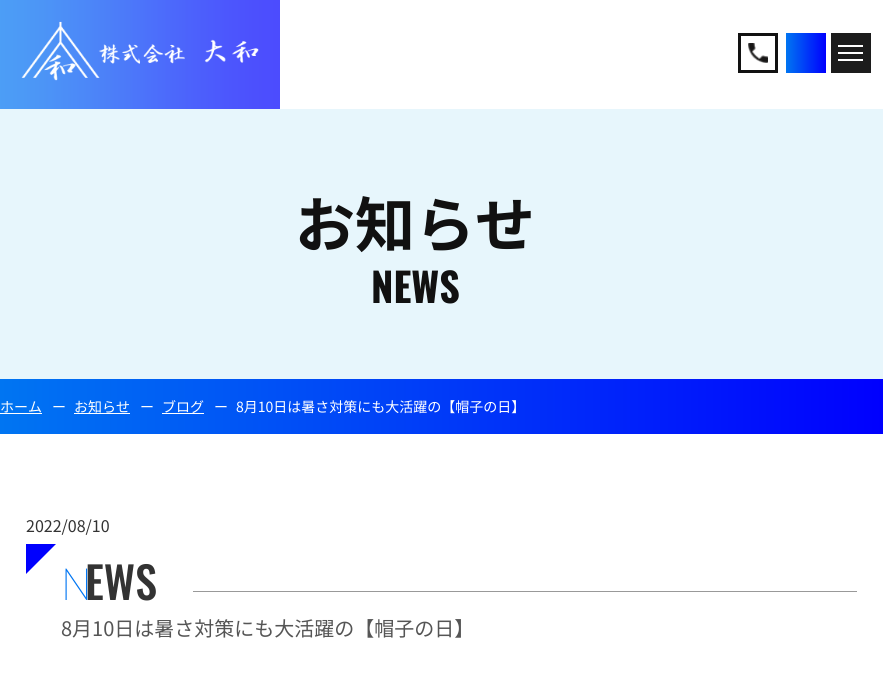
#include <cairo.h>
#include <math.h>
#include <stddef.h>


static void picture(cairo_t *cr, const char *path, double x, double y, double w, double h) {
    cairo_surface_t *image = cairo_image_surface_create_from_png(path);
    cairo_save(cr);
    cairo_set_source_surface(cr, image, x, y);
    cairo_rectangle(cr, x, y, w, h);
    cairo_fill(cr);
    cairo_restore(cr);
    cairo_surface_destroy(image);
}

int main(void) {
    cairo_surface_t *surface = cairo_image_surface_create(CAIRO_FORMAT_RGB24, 883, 688);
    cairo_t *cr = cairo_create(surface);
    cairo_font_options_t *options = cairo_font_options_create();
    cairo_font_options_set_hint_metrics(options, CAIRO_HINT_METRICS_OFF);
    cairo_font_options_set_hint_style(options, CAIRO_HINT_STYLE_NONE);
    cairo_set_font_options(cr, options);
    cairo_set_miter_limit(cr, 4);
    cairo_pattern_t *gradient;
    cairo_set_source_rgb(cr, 1, 1, 1);
    cairo_paint(cr);
    picture(cr, "img1.png", 0, 0, 280, 109);
    cairo_rectangle(cr, 739.5, 34.5, 37, 37);
    cairo_set_source_rgb(cr, 0.071, 0.071, 0.071);
    cairo_set_line_width(cr, 3);
    cairo_stroke(cr);
    picture(cr, "img2.png", 748, 43, 20, 20);
    gradient = cairo_pattern_create_linear(786, 53, 826, 53);
    cairo_pattern_add_color_stop_rgba(gradient, 0, 0, 0.459, 0.949, 1);
    cairo_pattern_add_color_stop_rgba(gradient, 1, 0, 0, 0.996, 1);
    cairo_set_source(cr, gradient);
    cairo_pattern_destroy(gradient);
    cairo_rectangle(cr, 786, 33, 40, 40);
    cairo_fill(cr);
    cairo_set_source_rgb(cr, 0.11, 0.11, 0.11);
    cairo_rectangle(cr, 831, 33, 40, 40);
    cairo_fill(cr);
    cairo_set_source_rgb(cr, 1, 1, 1);
    cairo_rectangle(cr, 838, 45, 25, 2);
    cairo_fill(cr);
    cairo_rectangle(cr, 838, 52, 25, 2);
    cairo_fill(cr);
    cairo_rectangle(cr, 838, 59, 25, 2);
    cairo_fill(cr);
    cairo_set_source_rgb(cr, 0.906, 0.961, 0.988);
    cairo_rectangle(cr, 0, 109, 883, 270);
    cairo_fill(cr);
    cairo_select_font_face(cr, "Noto Sans JP", CAIRO_FONT_SLANT_NORMAL, CAIRO_FONT_WEIGHT_BOLD);
    cairo_set_font_size(cr, 60);
    cairo_set_source_rgb(cr, 0.067, 0.067, 0.067);
    cairo_move_to(cr, 295, 247);
    cairo_show_text(cr, "お知らせ");
    cairo_select_font_face(cr, "Oswald", CAIRO_FONT_SLANT_NORMAL, CAIRO_FONT_WEIGHT_BOLD);
    cairo_set_font_size(cr, 40);
    cairo_move_to(cr, 371, 303);
    cairo_show_text(cr, "NEWS");
    gradient = cairo_pattern_create_linear(0, 407, 883, 407);
    cairo_pattern_add_color_stop_rgba(gradient, 0, 0, 0.459, 0.949, 1);
    cairo_pattern_add_color_stop_rgba(gradient, 1, 0, 0, 0.996, 1);
    cairo_set_source(cr, gradient);
    cairo_pattern_destroy(gradient);
    cairo_rectangle(cr, 0, 379, 883, 55);
    cairo_fill(cr);
    cairo_select_font_face(cr, "Noto Sans JP", CAIRO_FONT_SLANT_NORMAL, CAIRO_FONT_WEIGHT_NORMAL);
    cairo_set_font_size(cr, 14);
    cairo_set_source_rgb(cr, 1, 1, 1);
    cairo_move_to(cr, 0, 412);
    cairo_show_text(cr, "ホーム");
    cairo_rectangle(cr, 0, 413, 42, 1);
    cairo_fill(cr);
    cairo_move_to(cr, 52, 412);
    cairo_show_text(cr, "ー");
    cairo_rectangle(cr, 74, 413, 56, 1);
    cairo_fill(cr);
    cairo_move_to(cr, 74, 412);
    cairo_show_text(cr, "お知らせ");
    cairo_move_to(cr, 140, 412);
    cairo_show_text(cr, "ー");
    cairo_move_to(cr, 162, 412);
    cairo_show_text(cr, "ブログ");
    cairo_rectangle(cr, 162, 413, 42, 1);
    cairo_fill(cr);
    cairo_move_to(cr, 214, 412);
    cairo_show_text(cr, "ー");
    cairo_move_to(cr, 236, 412);
    cairo_show_text(cr, "8月10日は暑さ対策にも大活躍の【帽子の日】");
    cairo_set_font_size(cr, 16);
    cairo_set_source_rgb(cr, 0.2, 0.2, 0.2);
    cairo_move_to(cr, 26, 532);
    cairo_show_text(cr, "2022/08/10");
    cairo_set_source_rgb(cr, 0, 0, 0.996);
    cairo_new_path(cr);
    cairo_move_to(cr, 26, 544);
    cairo_line_to(cr, 56, 544);
    cairo_line_to(cr, 26, 574);
    cairo_close_path(cr);
    cairo_fill(cr);
    cairo_select_font_face(cr, "Noto Sans Thin", CAIRO_FONT_SLANT_NORMAL, CAIRO_FONT_WEIGHT_NORMAL);
    cairo_set_font_size(cr, 44);
    cairo_set_source_rgb(cr, 0, 0.459, 0.949);
    cairo_move_to(cr, 61, 600);
    cairo_show_text(cr, "N");
    cairo_select_font_face(cr, "Oswald Medium", CAIRO_FONT_SLANT_NORMAL, CAIRO_FONT_WEIGHT_NORMAL);
    cairo_set_source_rgb(cr, 0.2, 0.2, 0.2);
    cairo_move_to(cr, 85, 600);
    cairo_show_text(cr, "EWS");
    cairo_set_source_rgb(cr, 0.6, 0.6, 0.6);
    cairo_rectangle(cr, 193, 591, 664, 1);
    cairo_fill(cr);
    cairo_select_font_face(cr, "Noto Sans JP", CAIRO_FONT_SLANT_NORMAL, CAIRO_FONT_WEIGHT_NORMAL);
    cairo_set_font_size(cr, 20);
    cairo_set_source_rgb(cr, 0.333, 0.333, 0.333);
    cairo_move_to(cr, 61, 636);
    cairo_show_text(cr, "8月10日は暑さ対策にも大活躍の【帽子の日】");
    cairo_surface_write_to_png(surface, "page.png");
    cairo_font_options_destroy(options);
    cairo_destroy(cr);
    cairo_surface_destroy(surface);
    return 0;
}
